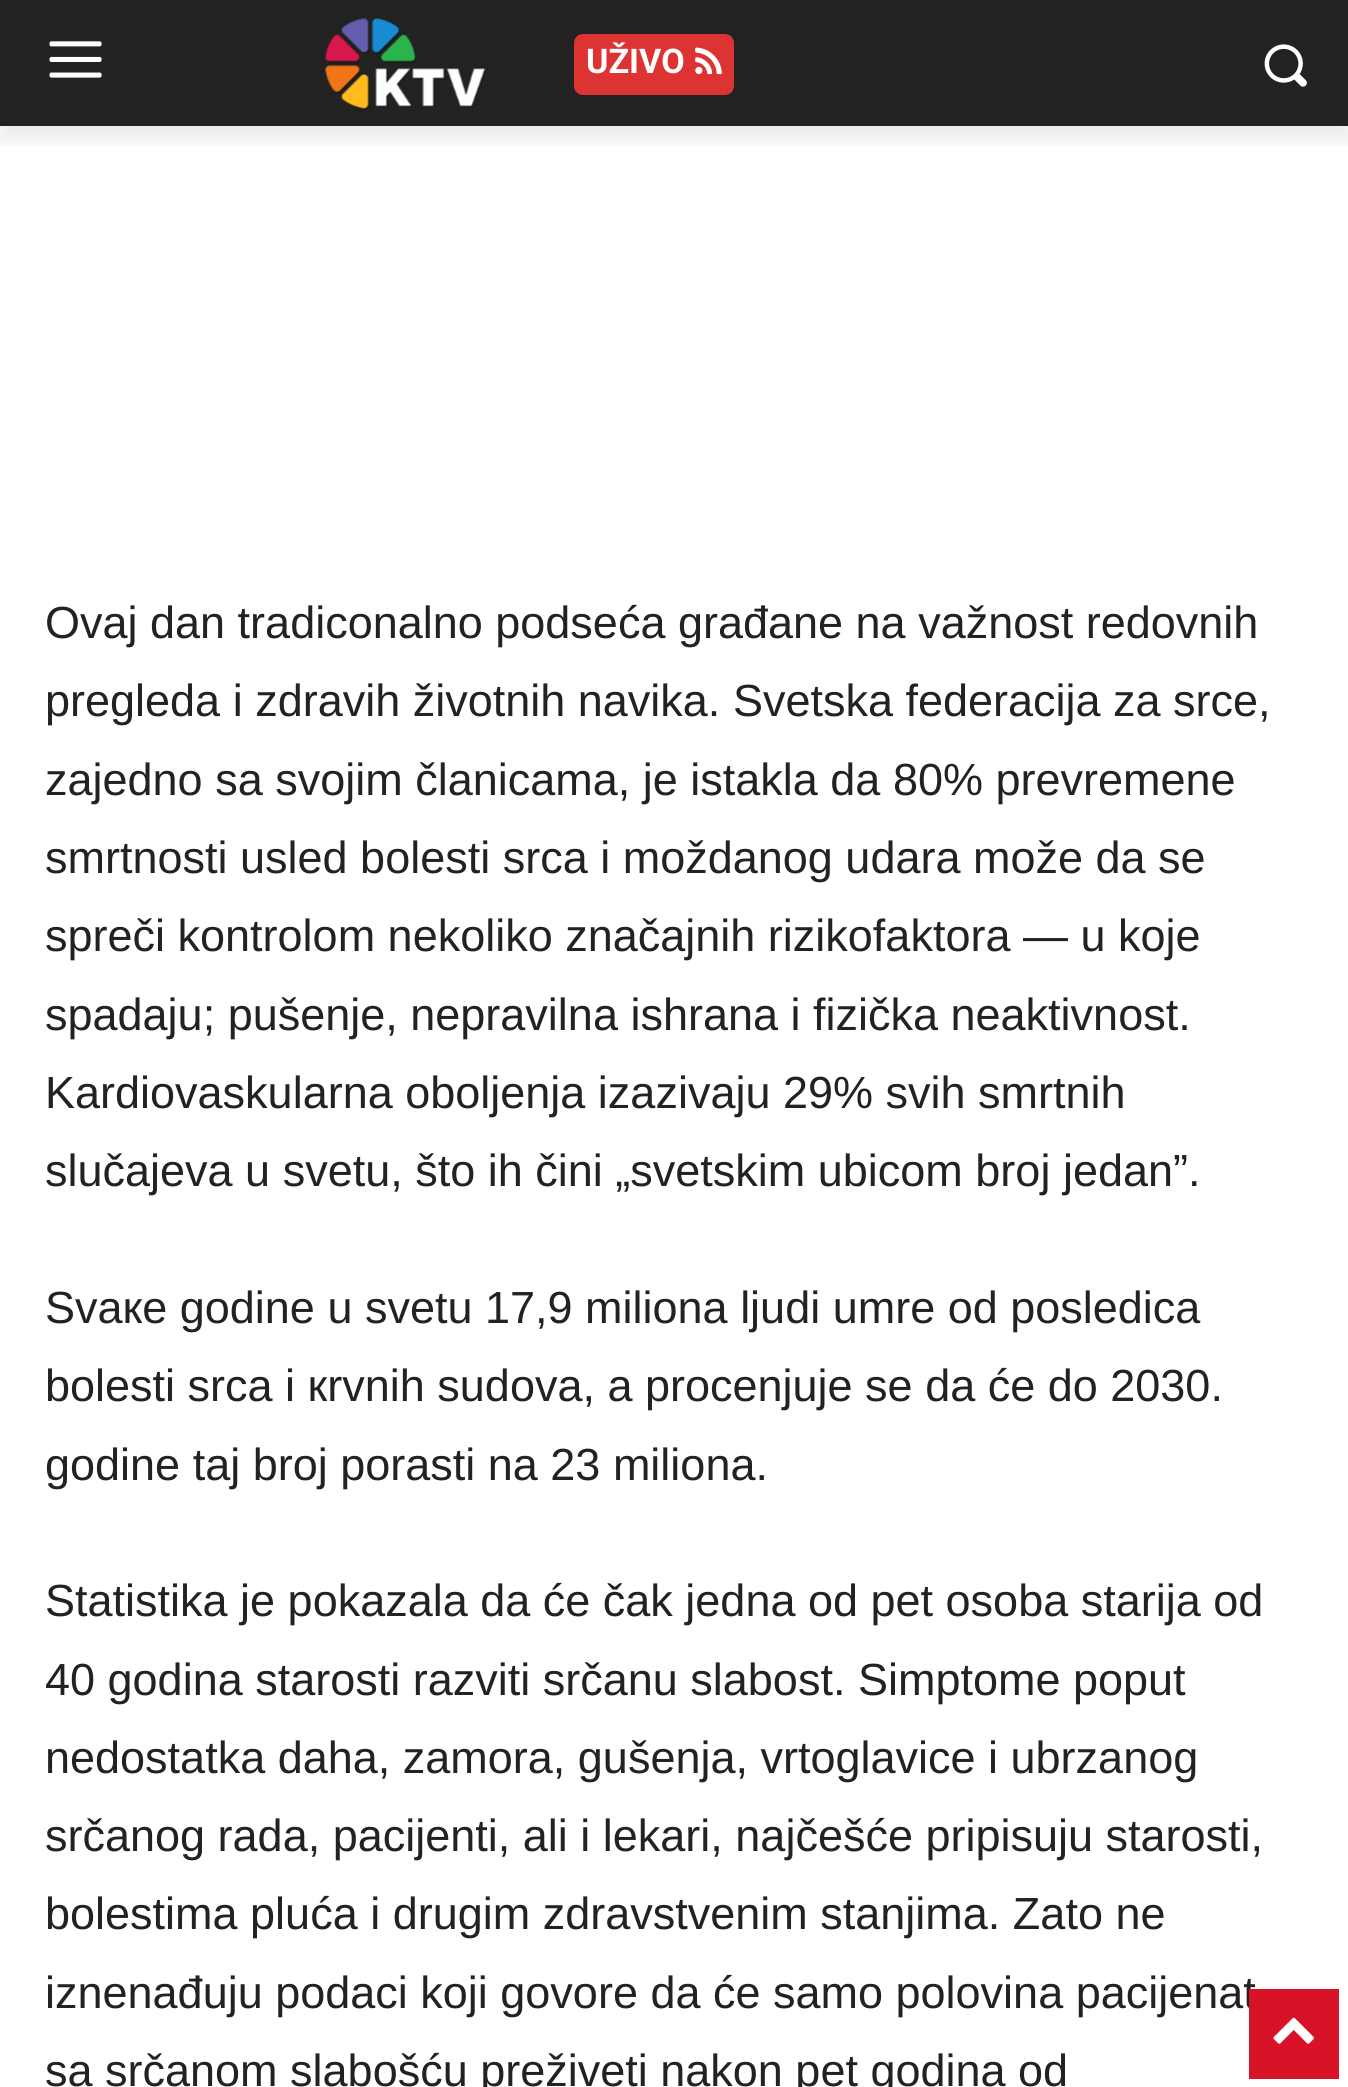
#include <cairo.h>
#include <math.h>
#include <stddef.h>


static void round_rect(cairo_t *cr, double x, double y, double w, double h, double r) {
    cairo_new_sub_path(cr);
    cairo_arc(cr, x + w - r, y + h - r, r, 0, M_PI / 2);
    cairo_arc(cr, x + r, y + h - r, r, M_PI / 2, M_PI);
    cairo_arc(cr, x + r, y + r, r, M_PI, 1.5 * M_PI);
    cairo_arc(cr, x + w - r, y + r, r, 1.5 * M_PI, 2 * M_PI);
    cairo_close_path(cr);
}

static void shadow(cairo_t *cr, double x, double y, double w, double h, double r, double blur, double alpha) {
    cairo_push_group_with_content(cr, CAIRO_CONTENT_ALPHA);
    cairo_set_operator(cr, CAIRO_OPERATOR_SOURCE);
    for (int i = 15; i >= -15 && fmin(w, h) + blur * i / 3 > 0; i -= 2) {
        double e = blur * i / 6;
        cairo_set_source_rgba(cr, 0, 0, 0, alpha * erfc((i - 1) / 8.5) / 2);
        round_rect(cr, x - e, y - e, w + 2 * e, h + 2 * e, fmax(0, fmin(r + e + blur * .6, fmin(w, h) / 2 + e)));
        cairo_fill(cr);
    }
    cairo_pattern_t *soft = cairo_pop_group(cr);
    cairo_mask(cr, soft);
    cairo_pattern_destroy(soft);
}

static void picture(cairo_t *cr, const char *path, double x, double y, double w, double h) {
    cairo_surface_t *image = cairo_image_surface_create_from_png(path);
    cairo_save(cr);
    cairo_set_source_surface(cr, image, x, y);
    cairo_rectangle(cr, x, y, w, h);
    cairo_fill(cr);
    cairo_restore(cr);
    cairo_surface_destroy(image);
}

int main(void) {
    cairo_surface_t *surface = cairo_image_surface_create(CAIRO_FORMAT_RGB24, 1348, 2087);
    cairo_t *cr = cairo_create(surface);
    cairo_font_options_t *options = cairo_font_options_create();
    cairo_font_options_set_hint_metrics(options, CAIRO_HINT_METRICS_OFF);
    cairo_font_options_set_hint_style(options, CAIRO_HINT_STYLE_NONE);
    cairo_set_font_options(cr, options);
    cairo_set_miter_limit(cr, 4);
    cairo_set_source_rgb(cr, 1, 1, 1);
    cairo_paint(cr);
    cairo_set_source_rgb(cr, 0.133, 0.133, 0.133);
    cairo_rectangle(cr, 0, 0, 1348, 126);
    cairo_fill(cr);
    picture(cr, "img1.png", 49, 41, 53, 37);
    picture(cr, "img2.png", 325, 18, 161, 92);
    cairo_set_source_rgb(cr, 0.867, 0.2, 0.2);
    round_rect(cr, 574, 34, 160, 61, 9);
    cairo_fill(cr);
    picture(cr, "img3.png", 695, 47, 27, 28);
    picture(cr, "img4.png", 1264, 44, 43, 43);
    cairo_save(cr);
    cairo_rectangle(cr, 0, 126, 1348, 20);
    cairo_clip(cr);
    cairo_set_source_rgb(cr, 0, 0, 0);
    shadow(cr, 0, 14, 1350, 126, 0, 9, 0.08);
    cairo_restore(cr);
    cairo_select_font_face(cr, "Roboto", CAIRO_FONT_SLANT_NORMAL, CAIRO_FONT_WEIGHT_BOLD);
    cairo_set_font_size(cr, 34);
    cairo_set_source_rgb(cr, 1, 1, 1);
    cairo_move_to(cr, 586, 73);
    cairo_show_text(cr, "UŽIVO");
    cairo_select_font_face(cr, "Liberation Sans", CAIRO_FONT_SLANT_NORMAL, CAIRO_FONT_WEIGHT_NORMAL);
    cairo_set_font_size(cr, 45);
    cairo_set_source_rgb(cr, 0.133, 0.133, 0.133);
    cairo_move_to(cr, 45, 638);
    cairo_show_text(cr, "Ovaj dan tradiconalno podseća građane na važnost redovnih");
    cairo_move_to(cr, 45, 716);
    cairo_show_text(cr, "pregleda i zdravih životnih navika. Svetska federacija za srce,");
    cairo_move_to(cr, 45, 795);
    cairo_show_text(cr, "zajedno sa svojim članicama, je istakla da 80% prevremene");
    cairo_move_to(cr, 45, 873);
    cairo_show_text(cr, "smrtnosti usled bolesti srca i moždanog udara može da se");
    cairo_move_to(cr, 45, 951);
    cairo_show_text(cr, "spreči kontrolom nekoliko značajnih rizikofaktora — u koje");
    cairo_move_to(cr, 45, 1030);
    cairo_show_text(cr, "spadaju; pušenje, nepravilna ishrana i fizička neaktivnost.");
    cairo_move_to(cr, 45, 1108);
    cairo_show_text(cr, "Kardiovaskularna oboljenja izazivaju 29% svih smrtnih");
    cairo_move_to(cr, 45, 1186);
    cairo_show_text(cr, "slučajeva u svetu, što ih čini „svetskim ubicom broj jedan”.");
    cairo_move_to(cr, 45, 1323);
    cairo_show_text(cr, "Svаке gоdinе u svеtu 17,9 miliоnа ljudi umrе od pоslеdicа");
    cairo_move_to(cr, 45, 1401);
    cairo_show_text(cr, "bоlеsti srcа i кrvnih sudоvа, а prоcеnjuје sе dа ćе dо 2030.");
    cairo_move_to(cr, 45, 1480);
    cairo_show_text(cr, "gоdinе tај brој pоrаsti nа 23 miliоnа.");
    cairo_move_to(cr, 45, 1616);
    cairo_show_text(cr, "Statistika je pokazala da će čak jedna od pet osoba starija od");
    cairo_move_to(cr, 45, 1695);
    cairo_show_text(cr, "40 godina starosti razviti srčanu slabost. Simptome poput");
    cairo_move_to(cr, 45, 1773);
    cairo_show_text(cr, "nedostatka daha, zamora, gušenja, vrtoglavice i ubrzanog");
    cairo_move_to(cr, 45, 1851);
    cairo_show_text(cr, "srčanog rada, pacijenti, ali i lekari, najčešće pripisuju starosti,");
    cairo_move_to(cr, 45, 1929);
    cairo_show_text(cr, "bolestima pluća i drugim zdravstvenim stanjima. Zato ne");
    cairo_move_to(cr, 45, 2008);
    cairo_show_text(cr, "iznenađuju podaci koji govore da će samo polovina pacijenat");
    cairo_move_to(cr, 45, 2086);
    cairo_show_text(cr, "sa srčanom slabošću preživeti nakon pet godina od");
    cairo_set_source_rgb(cr, 0.847, 0.075, 0.153);
    cairo_rectangle(cr, 1249, 1989, 90, 90);
    cairo_fill(cr);
    picture(cr, "img5.png", 1273, 2017, 41, 27);
    cairo_surface_write_to_png(surface, "page.png");
    cairo_font_options_destroy(options);
    cairo_destroy(cr);
    cairo_surface_destroy(surface);
    return 0;
}
